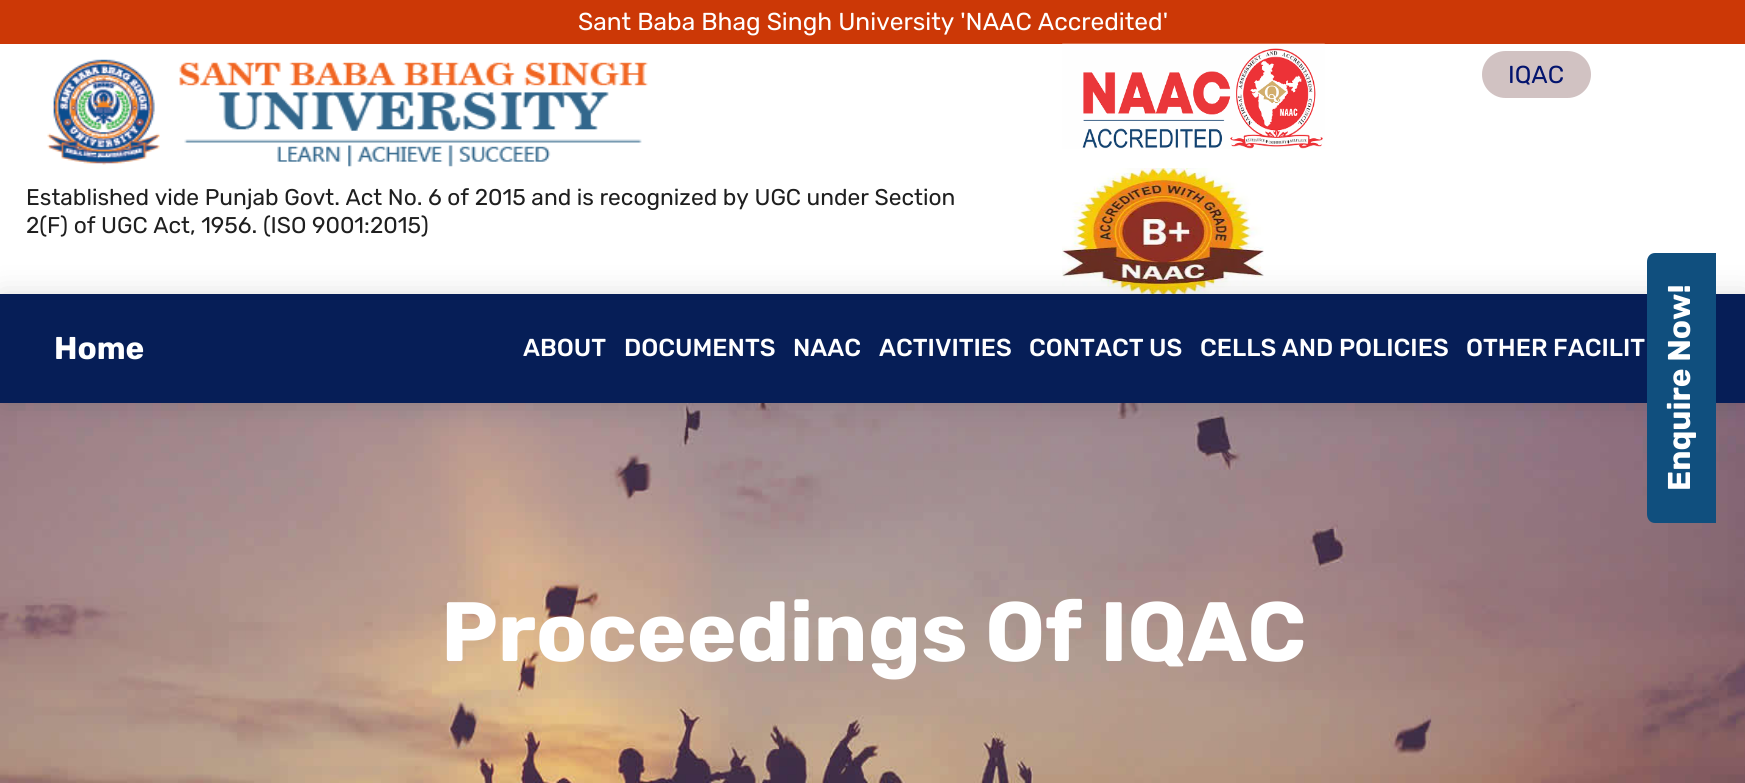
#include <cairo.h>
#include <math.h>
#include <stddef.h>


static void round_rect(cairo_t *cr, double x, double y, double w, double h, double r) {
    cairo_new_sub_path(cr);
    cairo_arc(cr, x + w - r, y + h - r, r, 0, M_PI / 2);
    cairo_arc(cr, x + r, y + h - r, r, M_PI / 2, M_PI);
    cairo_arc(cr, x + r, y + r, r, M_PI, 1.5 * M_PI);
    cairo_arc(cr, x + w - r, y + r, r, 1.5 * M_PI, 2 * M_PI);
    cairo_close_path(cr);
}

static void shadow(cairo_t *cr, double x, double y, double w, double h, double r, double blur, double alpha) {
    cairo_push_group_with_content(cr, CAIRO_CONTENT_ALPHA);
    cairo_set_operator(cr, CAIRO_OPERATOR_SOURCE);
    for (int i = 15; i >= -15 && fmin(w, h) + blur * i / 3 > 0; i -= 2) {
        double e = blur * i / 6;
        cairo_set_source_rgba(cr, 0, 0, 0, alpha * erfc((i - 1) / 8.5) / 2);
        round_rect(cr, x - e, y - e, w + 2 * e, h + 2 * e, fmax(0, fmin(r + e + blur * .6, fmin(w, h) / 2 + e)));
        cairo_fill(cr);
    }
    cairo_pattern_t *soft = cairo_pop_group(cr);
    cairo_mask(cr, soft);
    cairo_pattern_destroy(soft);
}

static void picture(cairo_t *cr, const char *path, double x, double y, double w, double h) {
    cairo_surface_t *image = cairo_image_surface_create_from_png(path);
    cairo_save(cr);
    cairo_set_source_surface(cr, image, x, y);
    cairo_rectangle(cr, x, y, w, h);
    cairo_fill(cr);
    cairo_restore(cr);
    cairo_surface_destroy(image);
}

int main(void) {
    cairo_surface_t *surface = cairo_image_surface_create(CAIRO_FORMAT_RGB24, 1745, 783);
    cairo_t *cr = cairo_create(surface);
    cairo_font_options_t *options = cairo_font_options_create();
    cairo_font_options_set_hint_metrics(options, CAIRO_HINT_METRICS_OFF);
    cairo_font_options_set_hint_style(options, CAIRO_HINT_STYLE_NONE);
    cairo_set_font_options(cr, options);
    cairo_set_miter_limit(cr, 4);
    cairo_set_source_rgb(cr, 1, 1, 1);
    cairo_paint(cr);
    cairo_set_source_rgb(cr, 0.8, 0.22, 0.024);
    cairo_rectangle(cr, 0, 0, 1745, 44);
    cairo_fill(cr);
    cairo_select_font_face(cr, "Rubik", CAIRO_FONT_SLANT_NORMAL, CAIRO_FONT_WEIGHT_NORMAL);
    cairo_set_font_size(cr, 24.5);
    cairo_set_source_rgb(cr, 1, 1, 1);
    cairo_move_to(cr, 578, 30);
    cairo_show_text(cr, "Sant Baba Bhag Singh University 'NAAC Accredited'");
    picture(cr, "img1.png", 1062, 43, 263, 106);
    picture(cr, "img2.png", 1062, 168, 202, 126);
    cairo_set_source_rgb(cr, 0.82, 0.761, 0.761);
    round_rect(cr, 1482, 51, 109, 47, 23.5);
    cairo_fill(cr);
    cairo_set_source_rgb(cr, 0.012, 0.082, 0.431);
    cairo_move_to(cr, 1508, 83);
    cairo_show_text(cr, "IQAC");
    picture(cr, "img3.png", 47, 59, 601, 108);
    cairo_set_font_size(cr, 22.75);
    cairo_set_source_rgb(cr, 0.122, 0.122, 0.122);
    cairo_move_to(cr, 26, 205);
    cairo_show_text(cr, "Established vide Punjab Govt. Act No. 6 of 2015 and is recognized by UGC under Section");
    cairo_move_to(cr, 26, 233);
    cairo_show_text(cr, "2(F) of UGC Act, 1956. (ISO 9001:2015)");
    picture(cr, "img4.png", 0, 403, 1745, 380);
    cairo_set_source_rgb(cr, 0, 0, 0);
    shadow(cr, 0, 294, 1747, 109, 0, 16, 0.12);
    cairo_set_source_rgb(cr, 0.027, 0.118, 0.341);
    cairo_rectangle(cr, 0, 294, 1745, 109);
    cairo_fill(cr);
    cairo_select_font_face(cr, "Rubik", CAIRO_FONT_SLANT_NORMAL, CAIRO_FONT_WEIGHT_BOLD);
    cairo_set_font_size(cr, 31.5);
    cairo_set_source_rgb(cr, 1, 1, 1);
    cairo_move_to(cr, 54, 359);
    cairo_show_text(cr, "Home");
    cairo_select_font_face(cr, "Rubik Medium", CAIRO_FONT_SLANT_NORMAL, CAIRO_FONT_WEIGHT_NORMAL);
    cairo_set_font_size(cr, 24.5);
    cairo_move_to(cr, 523, 356);
    cairo_show_text(cr, "ABOUT");
    cairo_move_to(cr, 624, 356);
    cairo_show_text(cr, "DOCUMENTS");
    cairo_move_to(cr, 793, 356);
    cairo_show_text(cr, "NAAC");
    cairo_move_to(cr, 879, 356);
    cairo_show_text(cr, "ACTIVITIES");
    cairo_move_to(cr, 1029, 356);
    cairo_show_text(cr, "CONTACT US");
    cairo_move_to(cr, 1200, 356);
    cairo_show_text(cr, "CELLS AND POLICIES");
    cairo_move_to(cr, 1466, 356);
    cairo_show_text(cr, "OTHER FACILIT");
    cairo_set_source_rgb(cr, 0.063, 0.31, 0.494);
    cairo_new_path(cr);
    cairo_move_to(cr, 1647, 514);
    cairo_line_to(cr, 1647, 262);
    cairo_curve_to(cr, 1647, 257, 1650, 253, 1655, 253);
    cairo_line_to(cr, 1716, 253);
    cairo_line_to(cr, 1716, 523);
    cairo_line_to(cr, 1655, 523);
    cairo_curve_to(cr, 1650, 523, 1647, 519, 1647, 514);
    cairo_close_path(cr);
    cairo_fill(cr);
    cairo_select_font_face(cr, "Rubik", CAIRO_FONT_SLANT_NORMAL, CAIRO_FONT_WEIGHT_BOLD);
    cairo_set_font_size(cr, 31.5);
    cairo_set_source_rgb(cr, 1, 1, 1);
    cairo_save(cr);
    cairo_translate(cr, 1690, 491);
    cairo_rotate(cr, -90 * M_PI / 180);
    cairo_move_to(cr, 0, 0);
    cairo_show_text(cr, "Enquire Now!");
    cairo_restore(cr);
    cairo_set_font_size(cr, 84);
    cairo_move_to(cr, 441, 661);
    cairo_show_text(cr, "Proceedings Of IQAC");
    cairo_surface_write_to_png(surface, "page.png");
    cairo_font_options_destroy(options);
    cairo_destroy(cr);
    cairo_surface_destroy(surface);
    return 0;
}
